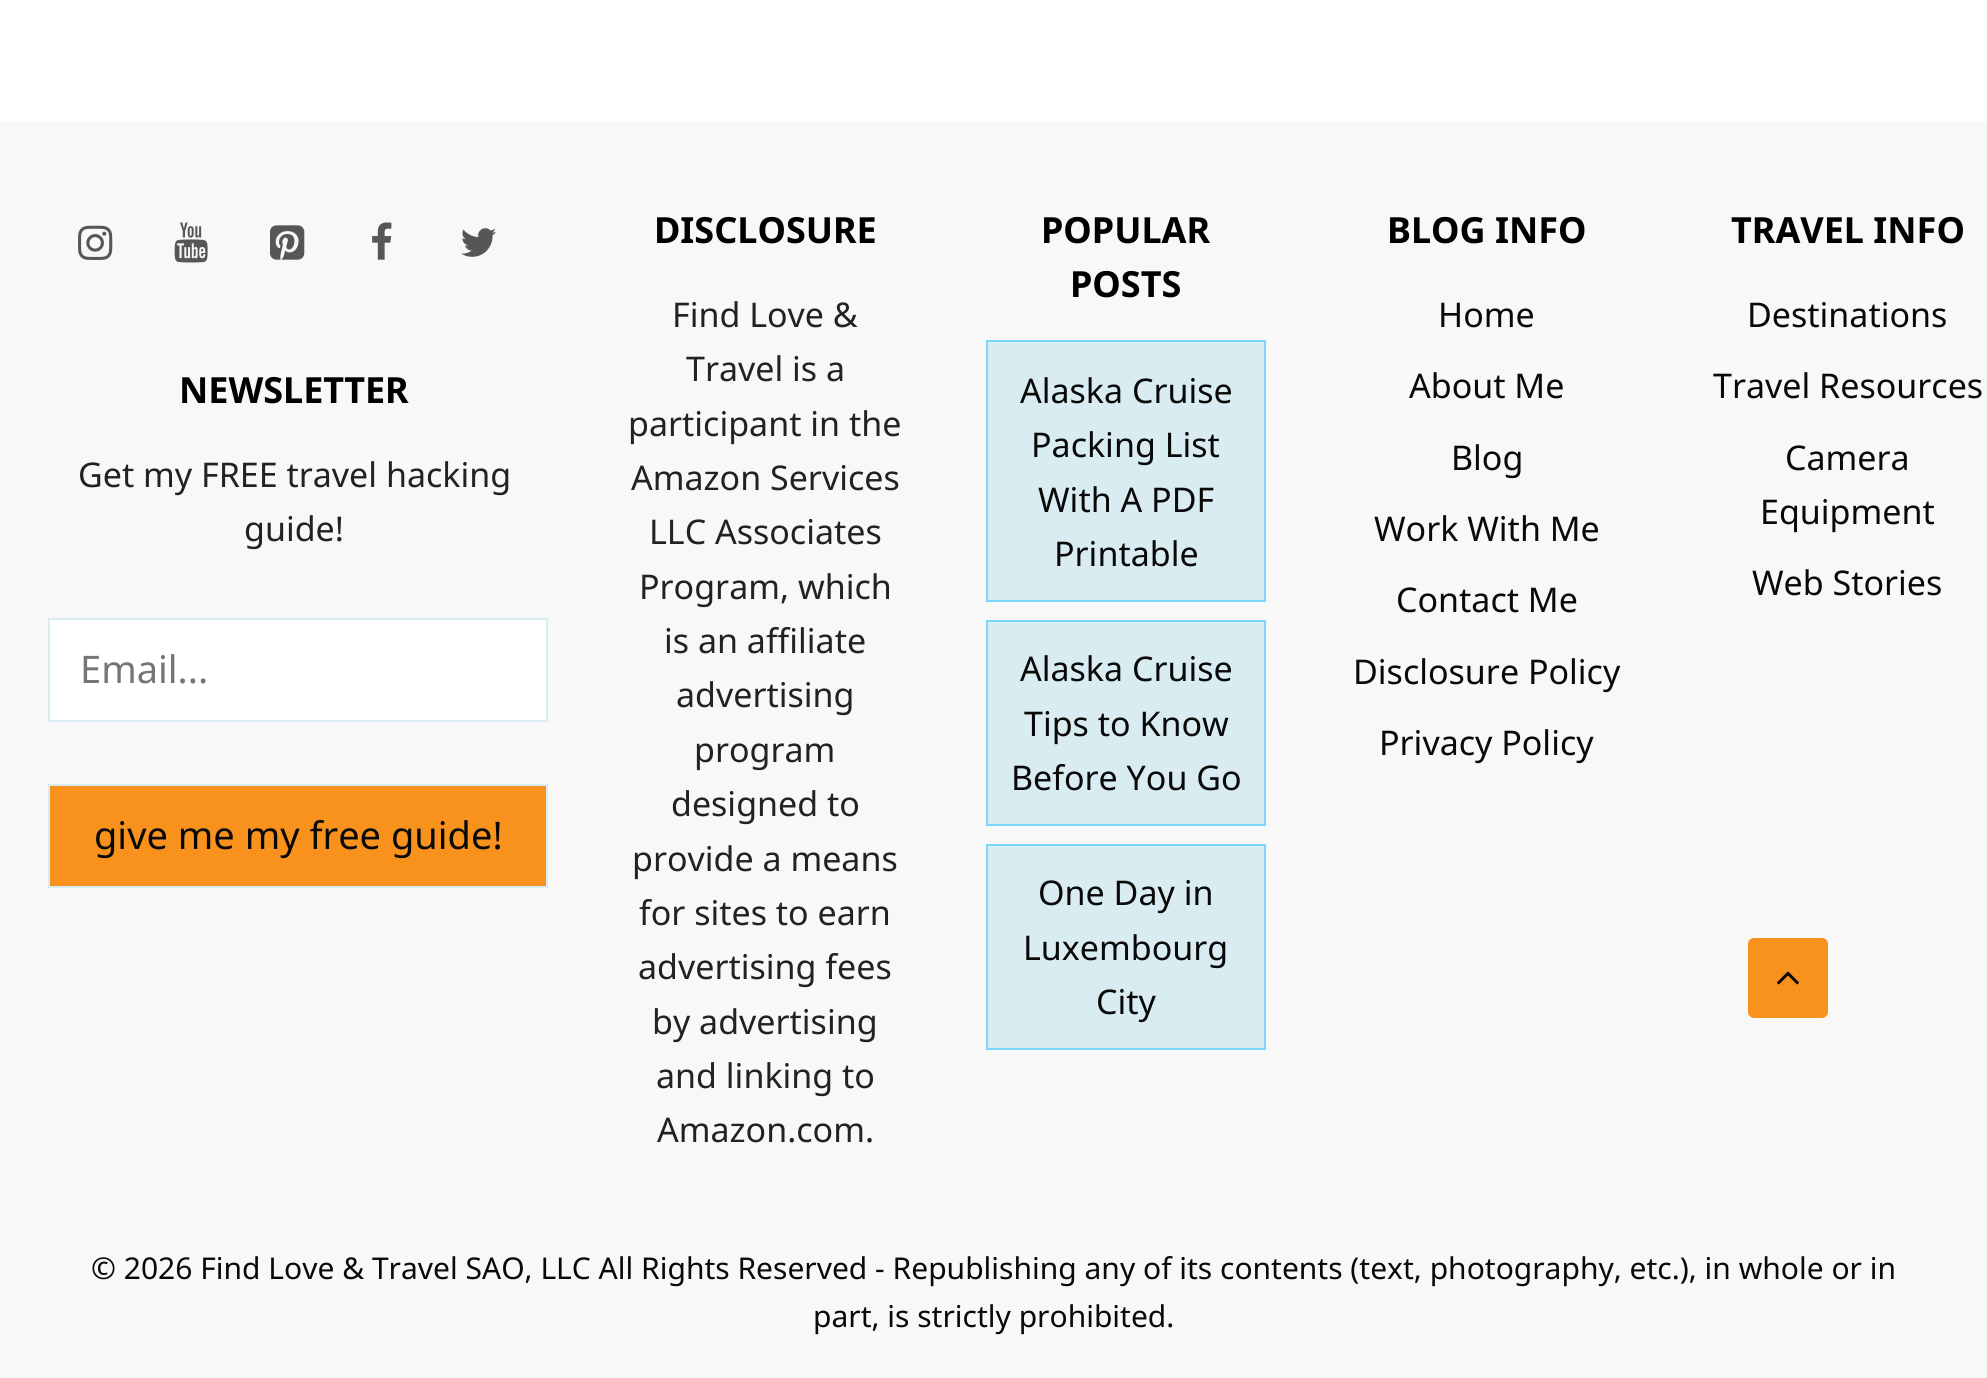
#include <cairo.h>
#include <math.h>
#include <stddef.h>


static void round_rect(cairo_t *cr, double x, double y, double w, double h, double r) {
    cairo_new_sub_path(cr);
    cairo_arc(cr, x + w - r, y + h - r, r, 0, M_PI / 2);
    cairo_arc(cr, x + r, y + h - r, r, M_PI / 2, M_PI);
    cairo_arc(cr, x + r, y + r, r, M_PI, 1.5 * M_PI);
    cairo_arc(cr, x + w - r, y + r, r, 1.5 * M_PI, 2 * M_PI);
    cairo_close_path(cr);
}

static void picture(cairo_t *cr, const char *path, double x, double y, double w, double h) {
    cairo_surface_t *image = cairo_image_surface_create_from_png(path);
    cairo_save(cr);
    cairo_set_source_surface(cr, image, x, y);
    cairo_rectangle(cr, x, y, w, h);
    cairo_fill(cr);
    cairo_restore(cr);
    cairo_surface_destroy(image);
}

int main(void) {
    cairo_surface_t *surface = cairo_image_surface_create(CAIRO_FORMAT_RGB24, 1987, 1378);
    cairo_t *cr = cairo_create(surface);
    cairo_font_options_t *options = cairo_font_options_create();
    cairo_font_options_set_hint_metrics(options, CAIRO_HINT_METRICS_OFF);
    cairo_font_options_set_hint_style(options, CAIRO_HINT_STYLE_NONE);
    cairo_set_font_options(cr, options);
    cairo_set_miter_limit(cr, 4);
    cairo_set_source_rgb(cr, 1, 1, 1);
    cairo_paint(cr);
    cairo_set_source_rgb(cr, 0.969, 0.969, 0.969);
    cairo_rectangle(cr, 0, 122, 1987, 1256);
    cairo_fill(cr);
    picture(cr, "img1.png", 78, 225, 35, 35);
    picture(cr, "img2.png", 174, 222, 34, 41);
    picture(cr, "img3.png", 270, 225, 35, 35);
    picture(cr, "img4.png", 372, 222, 20, 38);
    picture(cr, "img5.png", 461, 228, 35, 29);
    cairo_select_font_face(cr, "Noto Sans", CAIRO_FONT_SLANT_NORMAL, CAIRO_FONT_WEIGHT_BOLD);
    cairo_set_font_size(cr, 36);
    cairo_set_source_rgb(cr, 0, 0, 0);
    cairo_move_to(cr, 179, 403);
    cairo_show_text(cr, "NEWSLETTER");
    cairo_select_font_face(cr, "Noto Sans", CAIRO_FONT_SLANT_NORMAL, CAIRO_FONT_WEIGHT_NORMAL);
    cairo_set_font_size(cr, 34);
    cairo_set_source_rgb(cr, 0.133, 0.133, 0.133);
    cairo_move_to(cr, 78, 487);
    cairo_show_text(cr, "Get my FREE travel hacking");
    cairo_move_to(cr, 244, 541);
    cairo_show_text(cr, "guide!");
    cairo_set_source_rgb(cr, 1, 1, 1);
    cairo_rectangle(cr, 49, 619, 498, 102);
    cairo_fill_preserve(cr);
    cairo_set_source_rgb(cr, 0.851, 0.925, 0.945);
    cairo_stroke(cr);
    cairo_set_font_size(cr, 38);
    cairo_set_source_rgb(cr, 0.459, 0.459, 0.459);
    cairo_move_to(cr, 80, 683);
    cairo_show_text(cr, "Email...");
    cairo_set_source_rgb(cr, 0.973, 0.573, 0.114);
    cairo_rectangle(cr, 49, 785, 498, 102);
    cairo_fill_preserve(cr);
    cairo_set_source_rgb(cr, 0.851, 0.925, 0.945);
    cairo_stroke(cr);
    cairo_set_source_rgb(cr, 0.039, 0.039, 0.039);
    cairo_move_to(cr, 94, 849);
    cairo_show_text(cr, "give me my free guide!");
    cairo_select_font_face(cr, "Noto Sans", CAIRO_FONT_SLANT_NORMAL, CAIRO_FONT_WEIGHT_BOLD);
    cairo_set_font_size(cr, 36);
    cairo_set_source_rgb(cr, 0, 0, 0);
    cairo_move_to(cr, 654, 243);
    cairo_show_text(cr, "DISCLOSURE");
    cairo_select_font_face(cr, "Noto Sans", CAIRO_FONT_SLANT_NORMAL, CAIRO_FONT_WEIGHT_NORMAL);
    cairo_set_font_size(cr, 34);
    cairo_set_source_rgb(cr, 0.133, 0.133, 0.133);
    cairo_move_to(cr, 672, 327);
    cairo_show_text(cr, "Find Love &");
    cairo_move_to(cr, 686, 381);
    cairo_show_text(cr, "Travel is a");
    cairo_move_to(cr, 628, 436);
    cairo_show_text(cr, "participant in the");
    cairo_move_to(cr, 631, 490);
    cairo_show_text(cr, "Amazon Services");
    cairo_move_to(cr, 649, 544);
    cairo_show_text(cr, "LLC Associates");
    cairo_move_to(cr, 639, 599);
    cairo_show_text(cr, "Program, which");
    cairo_move_to(cr, 664, 653);
    cairo_show_text(cr, "is an affiliate");
    cairo_move_to(cr, 676, 707);
    cairo_show_text(cr, "advertising");
    cairo_move_to(cr, 694, 762);
    cairo_show_text(cr, "program");
    cairo_move_to(cr, 671, 816);
    cairo_show_text(cr, "designed to");
    cairo_move_to(cr, 632, 871);
    cairo_show_text(cr, "provide a means");
    cairo_move_to(cr, 639, 925);
    cairo_show_text(cr, "for sites to earn");
    cairo_move_to(cr, 638, 979);
    cairo_show_text(cr, "advertising fees");
    cairo_move_to(cr, 652, 1034);
    cairo_show_text(cr, "by advertising");
    cairo_move_to(cr, 656, 1088);
    cairo_show_text(cr, "and linking to");
    cairo_move_to(cr, 657, 1142);
    cairo_show_text(cr, "Amazon.com.");
    cairo_select_font_face(cr, "Noto Sans", CAIRO_FONT_SLANT_NORMAL, CAIRO_FONT_WEIGHT_BOLD);
    cairo_set_font_size(cr, 36);
    cairo_set_source_rgb(cr, 0, 0, 0);
    cairo_move_to(cr, 1041, 243);
    cairo_show_text(cr, "POPULAR");
    cairo_move_to(cr, 1070, 297);
    cairo_show_text(cr, "POSTS");
    cairo_rectangle(cr, 987, 341, 278, 260);
    cairo_set_source_rgb(cr, 0.494, 0.831, 1);
    cairo_stroke(cr);
    cairo_set_source_rgb(cr, 0.851, 0.925, 0.945);
    cairo_rectangle(cr, 988, 342, 276, 258);
    cairo_fill(cr);
    cairo_select_font_face(cr, "Noto Sans", CAIRO_FONT_SLANT_NORMAL, CAIRO_FONT_WEIGHT_NORMAL);
    cairo_set_font_size(cr, 34);
    cairo_set_source_rgb(cr, 0.039, 0.039, 0.039);
    cairo_move_to(cr, 1020, 403);
    cairo_show_text(cr, "Alaska Cruise");
    cairo_move_to(cr, 1031, 457);
    cairo_show_text(cr, "Packing List");
    cairo_move_to(cr, 1038, 512);
    cairo_show_text(cr, "With A PDF");
    cairo_move_to(cr, 1054, 566);
    cairo_show_text(cr, "Printable");
    cairo_rectangle(cr, 987, 621, 278, 204);
    cairo_set_source_rgb(cr, 0.494, 0.831, 1);
    cairo_stroke(cr);
    cairo_set_source_rgb(cr, 0.851, 0.925, 0.945);
    cairo_rectangle(cr, 988, 622, 276, 202);
    cairo_fill(cr);
    cairo_set_source_rgb(cr, 0.039, 0.039, 0.039);
    cairo_move_to(cr, 1020, 681);
    cairo_show_text(cr, "Alaska Cruise");
    cairo_move_to(cr, 1024, 736);
    cairo_show_text(cr, "Tips to Know");
    cairo_move_to(cr, 1011, 790);
    cairo_show_text(cr, "Before You Go");
    cairo_rectangle(cr, 987, 845, 278, 204);
    cairo_set_source_rgb(cr, 0.494, 0.831, 1);
    cairo_stroke(cr);
    cairo_set_source_rgb(cr, 0.851, 0.925, 0.945);
    cairo_rectangle(cr, 988, 846, 276, 202);
    cairo_fill(cr);
    cairo_set_source_rgb(cr, 0.039, 0.039, 0.039);
    cairo_move_to(cr, 1038, 905);
    cairo_show_text(cr, "One Day in");
    cairo_move_to(cr, 1023, 960);
    cairo_show_text(cr, "Luxembourg");
    cairo_move_to(cr, 1096, 1014);
    cairo_show_text(cr, "City");
    cairo_select_font_face(cr, "Noto Sans", CAIRO_FONT_SLANT_NORMAL, CAIRO_FONT_WEIGHT_BOLD);
    cairo_set_font_size(cr, 36);
    cairo_set_source_rgb(cr, 0, 0, 0);
    cairo_move_to(cr, 1387, 243);
    cairo_show_text(cr, "BLOG INFO");
    cairo_select_font_face(cr, "Noto Sans", CAIRO_FONT_SLANT_NORMAL, CAIRO_FONT_WEIGHT_NORMAL);
    cairo_set_font_size(cr, 34);
    cairo_set_source_rgb(cr, 0.039, 0.039, 0.039);
    cairo_move_to(cr, 1438, 327);
    cairo_show_text(cr, "Home");
    cairo_move_to(cr, 1409, 398);
    cairo_show_text(cr, "About Me");
    cairo_move_to(cr, 1451, 470);
    cairo_show_text(cr, "Blog");
    cairo_move_to(cr, 1374, 541);
    cairo_show_text(cr, "Work With Me");
    cairo_move_to(cr, 1396, 612);
    cairo_show_text(cr, "Contact Me");
    cairo_move_to(cr, 1353, 684);
    cairo_show_text(cr, "Disclosure Policy");
    cairo_move_to(cr, 1379, 755);
    cairo_show_text(cr, "Privacy Policy");
    cairo_select_font_face(cr, "Noto Sans", CAIRO_FONT_SLANT_NORMAL, CAIRO_FONT_WEIGHT_BOLD);
    cairo_set_font_size(cr, 36);
    cairo_set_source_rgb(cr, 0, 0, 0);
    cairo_move_to(cr, 1731, 243);
    cairo_show_text(cr, "TRAVEL INFO");
    cairo_select_font_face(cr, "Noto Sans", CAIRO_FONT_SLANT_NORMAL, CAIRO_FONT_WEIGHT_NORMAL);
    cairo_set_font_size(cr, 34);
    cairo_set_source_rgb(cr, 0.039, 0.039, 0.039);
    cairo_move_to(cr, 1747, 327);
    cairo_show_text(cr, "Destinations");
    cairo_move_to(cr, 1713, 398);
    cairo_show_text(cr, "Travel Resources");
    cairo_move_to(cr, 1785, 470);
    cairo_show_text(cr, "Camera");
    cairo_move_to(cr, 1760, 524);
    cairo_show_text(cr, "Equipment");
    cairo_move_to(cr, 1752, 595);
    cairo_show_text(cr, "Web Stories");
    cairo_set_font_size(cr, 30);
    cairo_move_to(cr, 91, 1279);
    cairo_show_text(cr, "© 2026 Find Love & Travel SAO, LLC All Rights Reserved - Republishing any of its contents (text, photography, etc.), in whole or in");
    cairo_move_to(cr, 813, 1327);
    cairo_show_text(cr, "part, is strictly prohibited.");
    cairo_set_source_rgb(cr, 0.973, 0.573, 0.114);
    round_rect(cr, 1748, 938, 80, 80, 6);
    cairo_fill(cr);
    picture(cr, "img6.png", 1777, 971, 22, 14);
    cairo_surface_write_to_png(surface, "page.png");
    cairo_font_options_destroy(options);
    cairo_destroy(cr);
    cairo_surface_destroy(surface);
    return 0;
}
